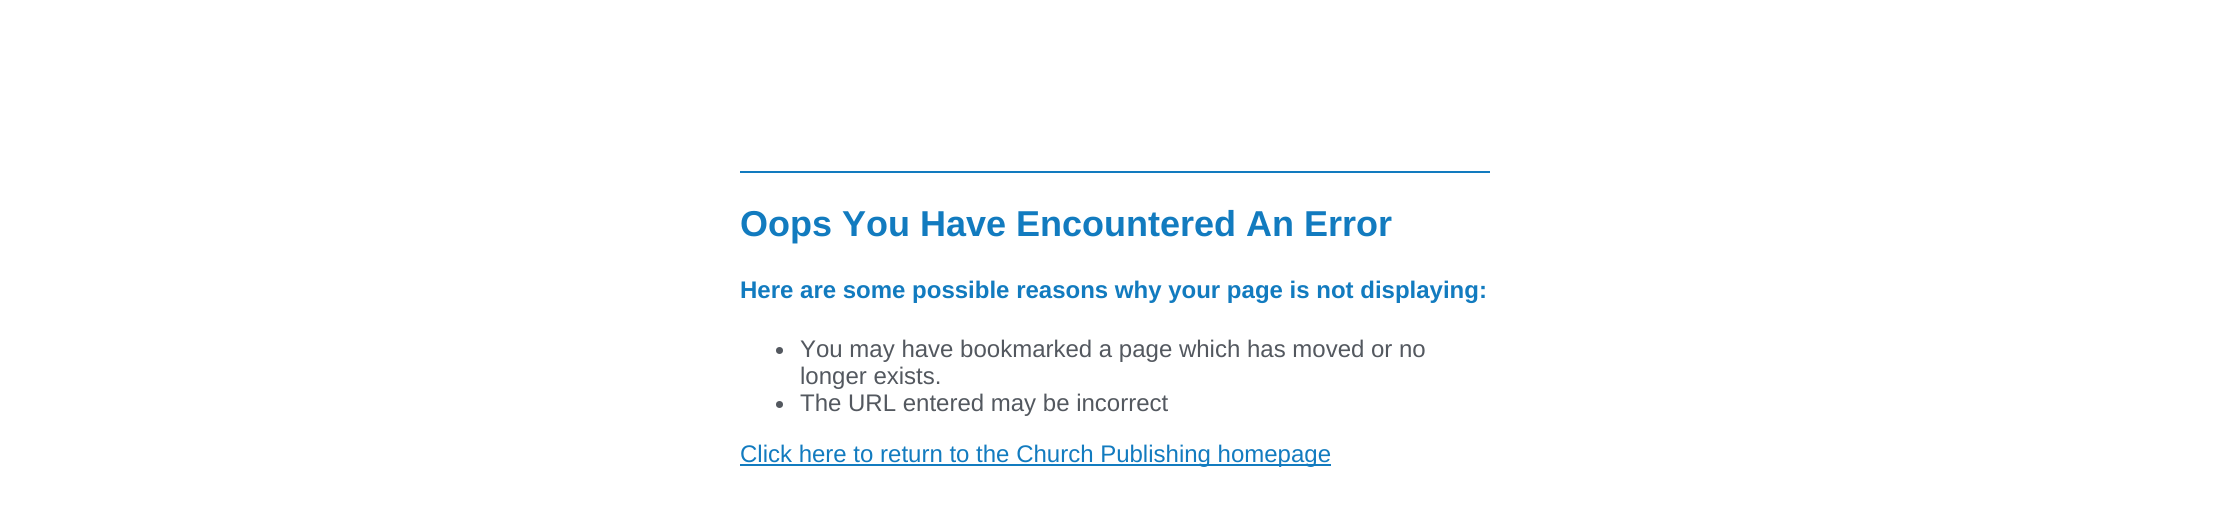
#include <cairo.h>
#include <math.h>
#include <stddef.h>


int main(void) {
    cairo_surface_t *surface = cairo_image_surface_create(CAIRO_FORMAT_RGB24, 2229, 521);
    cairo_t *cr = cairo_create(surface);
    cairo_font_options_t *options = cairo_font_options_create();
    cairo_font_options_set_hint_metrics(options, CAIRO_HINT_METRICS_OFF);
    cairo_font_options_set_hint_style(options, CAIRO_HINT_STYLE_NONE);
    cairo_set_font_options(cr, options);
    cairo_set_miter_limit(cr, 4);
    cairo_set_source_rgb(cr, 1, 1, 1);
    cairo_paint(cr);
    cairo_set_source_rgb(cr, 0.071, 0.482, 0.749);
    cairo_rectangle(cr, 740, 171, 750, 2);
    cairo_fill(cr);
    cairo_select_font_face(cr, "Liberation Sans", CAIRO_FONT_SLANT_NORMAL, CAIRO_FONT_WEIGHT_BOLD);
    cairo_set_font_size(cr, 36);
    cairo_move_to(cr, 740, 236);
    cairo_show_text(cr, "Oops You Have Encountered An Error");
    cairo_set_font_size(cr, 24);
    cairo_move_to(cr, 740, 298);
    cairo_show_text(cr, "Here are some possible reasons why your page is not displaying:");
    cairo_set_source_rgb(cr, 0.325, 0.345, 0.373);
    cairo_new_path(cr);
    cairo_arc(cr, 779.5, 350.5, 3.5, 0, 2 * M_PI);
    cairo_fill(cr);
    cairo_select_font_face(cr, "Liberation Sans", CAIRO_FONT_SLANT_NORMAL, CAIRO_FONT_WEIGHT_NORMAL);
    cairo_move_to(cr, 800, 357);
    cairo_show_text(cr, "You may have bookmarked a page which has moved or no");
    cairo_move_to(cr, 800, 384);
    cairo_show_text(cr, "longer exists.");
    cairo_new_path(cr);
    cairo_arc(cr, 779.5, 404.5, 3.5, 0, 2 * M_PI);
    cairo_fill(cr);
    cairo_move_to(cr, 800, 411);
    cairo_show_text(cr, "The URL entered may be incorrect");
    cairo_set_source_rgb(cr, 0.071, 0.482, 0.749);
    cairo_rectangle(cr, 740, 464, 591, 2);
    cairo_fill(cr);
    cairo_move_to(cr, 740, 462);
    cairo_show_text(cr, "Click here to return to the Church Publishing homepage");
    cairo_surface_write_to_png(surface, "page.png");
    cairo_font_options_destroy(options);
    cairo_destroy(cr);
    cairo_surface_destroy(surface);
    return 0;
}
